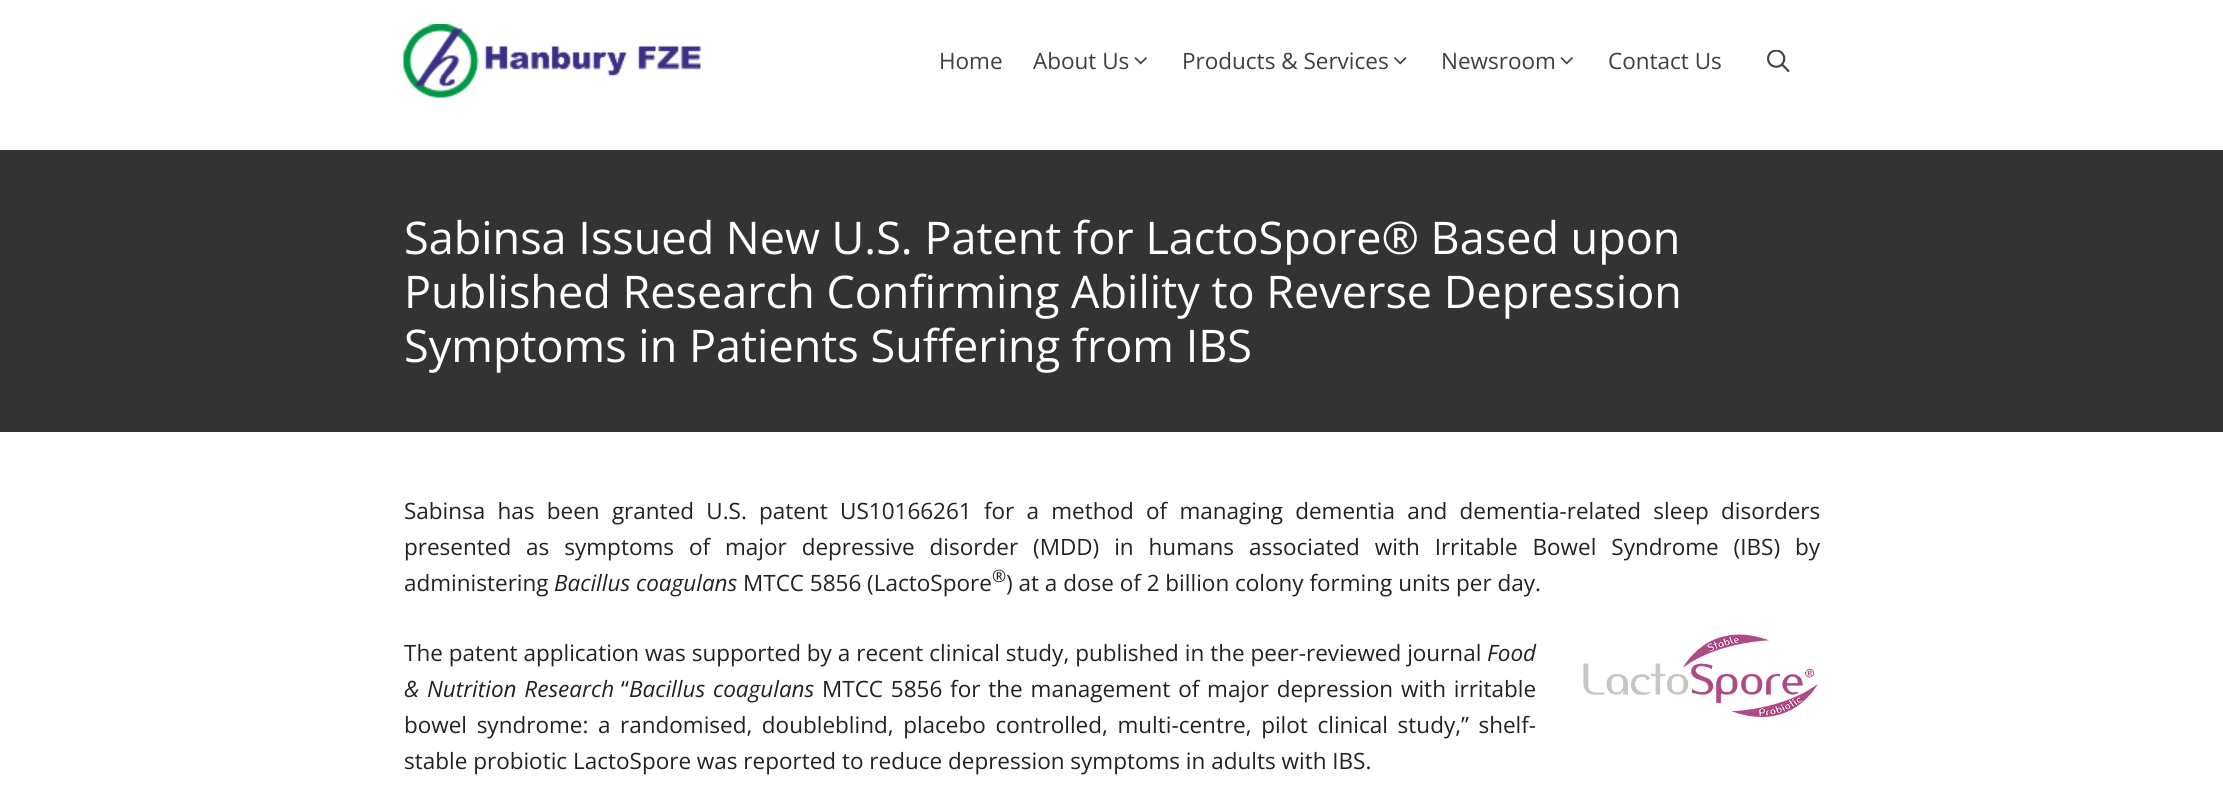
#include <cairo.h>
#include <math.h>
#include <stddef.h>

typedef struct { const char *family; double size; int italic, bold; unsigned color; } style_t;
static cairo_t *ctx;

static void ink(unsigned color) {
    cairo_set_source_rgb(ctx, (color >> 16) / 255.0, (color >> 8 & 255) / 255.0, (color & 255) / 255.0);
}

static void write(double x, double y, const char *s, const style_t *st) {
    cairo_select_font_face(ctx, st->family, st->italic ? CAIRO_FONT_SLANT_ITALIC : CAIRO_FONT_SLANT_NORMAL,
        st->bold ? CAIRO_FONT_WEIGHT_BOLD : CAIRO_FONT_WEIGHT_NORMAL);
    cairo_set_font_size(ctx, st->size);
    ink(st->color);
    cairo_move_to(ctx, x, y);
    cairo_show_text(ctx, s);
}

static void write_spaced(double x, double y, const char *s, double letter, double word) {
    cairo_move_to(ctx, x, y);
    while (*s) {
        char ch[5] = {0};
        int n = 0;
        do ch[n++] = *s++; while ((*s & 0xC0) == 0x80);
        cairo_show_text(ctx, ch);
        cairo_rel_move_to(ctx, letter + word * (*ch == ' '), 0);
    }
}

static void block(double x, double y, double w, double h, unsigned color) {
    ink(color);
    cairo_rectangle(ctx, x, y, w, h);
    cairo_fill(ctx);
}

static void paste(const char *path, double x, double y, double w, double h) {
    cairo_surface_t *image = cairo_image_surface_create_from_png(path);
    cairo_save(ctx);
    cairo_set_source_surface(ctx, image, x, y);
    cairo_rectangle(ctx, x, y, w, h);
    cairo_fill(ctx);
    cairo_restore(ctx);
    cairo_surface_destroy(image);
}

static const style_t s1 = {"Open Sans", 22.5, 0, 0, 0x3f3f3f};
static const style_t s2 = {"Open Sans", 45, 0, 0, 0xffffff};
static const style_t s3 = {"Open Sans", 22.5, 0, 0, 0x222222};
static const style_t s4 = {"Open Sans", 22.5, 1, 0, 0x222222};
static const style_t s5 = {"Open Sans", 17, 0, 0, 0x222222};

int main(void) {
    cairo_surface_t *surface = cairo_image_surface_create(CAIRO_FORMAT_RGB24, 2223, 789);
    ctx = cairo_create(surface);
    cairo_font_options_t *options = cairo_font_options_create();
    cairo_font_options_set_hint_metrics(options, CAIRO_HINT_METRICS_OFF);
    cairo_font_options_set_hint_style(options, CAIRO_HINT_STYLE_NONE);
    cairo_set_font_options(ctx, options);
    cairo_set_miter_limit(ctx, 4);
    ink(0xffffff);
    cairo_paint(ctx);
    paste("pic1.png", 403, 24, 298, 74);
    write(939, 69, "Home", &s1);
    write(1033, 69, "About Us", &s1);
    paste("pic2.png", 1134, 57, 13, 8);
    write(1182, 69, "Products & Services", &s1);
    paste("pic3.png", 1394, 57, 13, 8);
    write(1441, 69, "Newsroom", &s1);
    paste("pic2.png", 1560, 57, 13, 8);
    write(1608, 69, "Contact Us", &s1);
    paste("pic4.png", 1767, 50, 23, 22);
    block(0, 150, 2223, 282, 0x333333);
    write(404, 254, "Sabinsa Issued New U.S. Patent for LactoSpore® Based upon", &s2);
    write(404, 308, "Published Research Confirming Ability to Reverse Depression", &s2);
    write(404, 362, "Symptoms in Patients Suffering from IBS", &s2);
    cairo_set_font_size(ctx, 22.5);
    ink(0x222222);
    write_spaced(404, 519, "Sabinsa has been granted U.S. patent US10166261 for a method of managing dementia and dementia-related sleep disorders", 0, 6.4);
    write_spaced(404, 555, "presented as symptoms of major depressive disorder (MDD) in humans associated with Irritable Bowel Syndrome (IBS) by", 0, 9.1);
    write(404, 591, "administering", &s3);
    write(554, 591, "Bacillus coagulans", &s4);
    write(743, 591, "MTCC 5856 (LactoSpore", &s3);
    write(992, 582, "®", &s5);
    write(1006, 591, ") at a dose of 2 billion colony forming units per day.", &s3);
    write_spaced(404, 661, "The patent application was supported by a recent clinical study, published in the peer-reviewed journal", 0, 0.1);
    write(1487, 661, "Food", &s4);
    write_spaced(404, 697, "& Nutrition Research", 0, 2);
    write(621, 697, "“", &s3);
    cairo_select_font_face(ctx, "Open Sans", CAIRO_FONT_SLANT_ITALIC, CAIRO_FONT_WEIGHT_NORMAL);
    write_spaced(629, 697, "Bacillus coagulans", 0, 2);
    cairo_select_font_face(ctx, "Open Sans", CAIRO_FONT_SLANT_NORMAL, CAIRO_FONT_WEIGHT_NORMAL);
    write_spaced(822, 697, "MTCC 5856 for the management of major depression with irritable", 0, 2);
    write_spaced(404, 733, "bowel syndrome: a randomised, doubleblind, placebo controlled, multi-centre, pilot clinical study,” shelf-", 0, 3.75);
    write(404, 769, "stable probiotic LactoSpore was reported to reduce depression symptoms in adults with IBS.", &s3);
    paste("pic5.png", 1583, 634, 235, 83);
    cairo_surface_write_to_png(surface, "screenshot.png");
    cairo_font_options_destroy(options);
    cairo_destroy(ctx);
    cairo_surface_destroy(surface);
    return 0;
}
